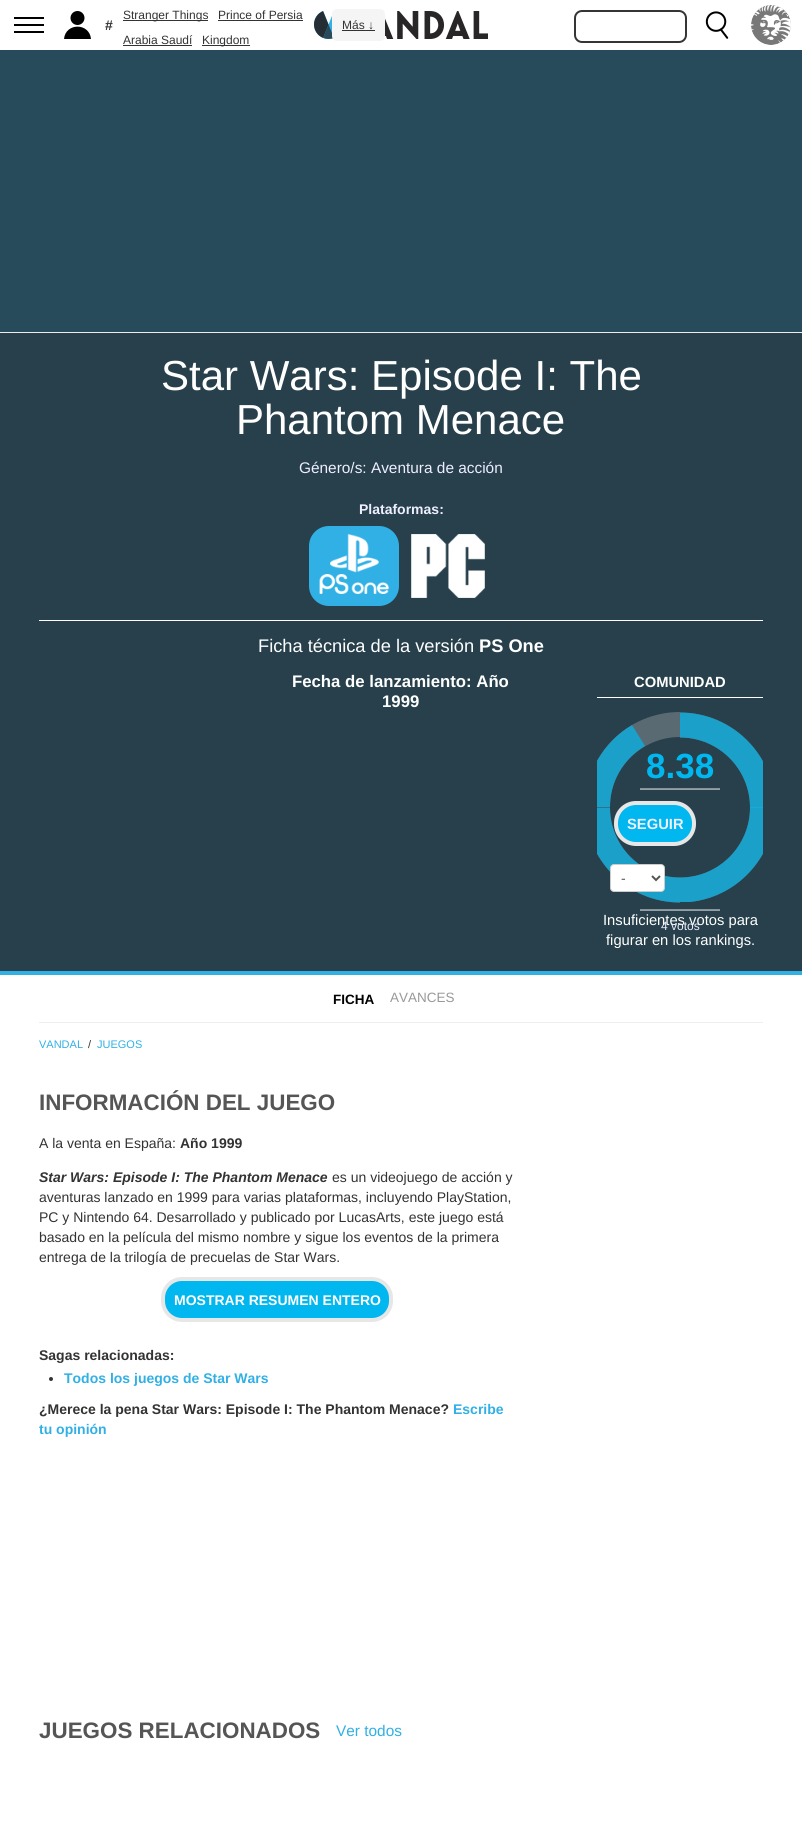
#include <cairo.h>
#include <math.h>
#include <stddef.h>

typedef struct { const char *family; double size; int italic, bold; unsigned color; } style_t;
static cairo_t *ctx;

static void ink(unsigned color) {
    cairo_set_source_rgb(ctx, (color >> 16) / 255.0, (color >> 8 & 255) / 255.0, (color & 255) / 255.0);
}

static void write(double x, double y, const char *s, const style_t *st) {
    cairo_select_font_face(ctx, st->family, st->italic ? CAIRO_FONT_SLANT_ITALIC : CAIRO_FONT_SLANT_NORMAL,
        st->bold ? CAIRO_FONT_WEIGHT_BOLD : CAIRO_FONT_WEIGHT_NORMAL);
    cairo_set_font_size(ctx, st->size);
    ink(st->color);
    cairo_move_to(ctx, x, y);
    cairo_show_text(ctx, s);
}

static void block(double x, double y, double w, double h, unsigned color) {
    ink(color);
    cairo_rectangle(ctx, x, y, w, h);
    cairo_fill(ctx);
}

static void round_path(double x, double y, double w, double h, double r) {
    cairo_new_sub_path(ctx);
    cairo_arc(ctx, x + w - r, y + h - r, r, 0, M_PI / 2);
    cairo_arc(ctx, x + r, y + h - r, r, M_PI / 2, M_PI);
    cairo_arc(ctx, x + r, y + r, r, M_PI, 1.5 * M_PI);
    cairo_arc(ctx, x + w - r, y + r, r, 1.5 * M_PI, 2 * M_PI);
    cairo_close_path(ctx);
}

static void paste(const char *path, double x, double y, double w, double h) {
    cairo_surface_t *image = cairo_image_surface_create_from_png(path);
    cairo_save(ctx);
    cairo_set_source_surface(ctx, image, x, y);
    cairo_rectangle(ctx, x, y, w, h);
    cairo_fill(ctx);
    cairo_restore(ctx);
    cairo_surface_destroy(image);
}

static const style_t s1 = {"Liberation Sans", 12, 0, 0, 0x333333};
static const style_t s2 = {"Liberation Sans", 14, 0, 1, 0x333333};
static const style_t s3 = {"Liberation Sans", 42, 0, 0, 0xffffff};
static const style_t s4 = {"Liberation Sans", 15.4, 0, 0, 0xeeeeff};
static const style_t s5 = {"Liberation Sans", 14, 0, 1, 0xeeeeff};
static const style_t s6 = {"Liberation Sans", 18.25, 0, 0, 0xffffff};
static const style_t s7 = {"Liberation Sans", 18.25, 0, 1, 0xffffff};
static const style_t s8 = {"Liberation Sans", 16.75, 0, 1, 0xffffff};
static const style_t s9 = {"Liberation Sans", 14.75, 0, 1, 0xffffff};
static const style_t s10 = {"Liberation Sans", 35, 0, 1, 0x00b7ef};
static const style_t s11 = {"Liberation Sans", 14.75, 0, 1, 0xeeeeff};
static const style_t s12 = {"Liberation Sans", 14, 0, 0, 0x555555};
static const style_t s13 = {"Liberation Sans", 14.75, 0, 0, 0xffffff};
static const style_t s14 = {"Liberation Sans", 12, 0, 0, 0xeeeeff};
static const style_t s15 = {"Liberation Sans", 13.5, 0, 1, 0x000000};
static const style_t s16 = {"Liberation Sans", 13.5, 0, 0, 0x999999};
static const style_t s17 = {"Liberation Sans", 11, 0, 0, 0x30b0e5};
static const style_t s18 = {"Liberation Sans", 11, 0, 0, 0x333333};
static const style_t s19 = {"Liberation Sans", 22.4, 0, 1, 0x555555};
static const style_t s20 = {"Liberation Sans", 14, 0, 0, 0x333333};
static const style_t s21 = {"Liberation Sans", 14, 1, 1, 0x333333};
static const style_t s22 = {"Liberation Sans", 14, 0, 1, 0xffffff};
static const style_t s23 = {"Liberation Sans", 14, 0, 1, 0x30b0e5};
static const style_t s24 = {"Liberation Sans", 15.4, 0, 0, 0x30b0e5};

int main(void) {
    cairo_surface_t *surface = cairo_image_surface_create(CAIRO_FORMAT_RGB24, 802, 1829);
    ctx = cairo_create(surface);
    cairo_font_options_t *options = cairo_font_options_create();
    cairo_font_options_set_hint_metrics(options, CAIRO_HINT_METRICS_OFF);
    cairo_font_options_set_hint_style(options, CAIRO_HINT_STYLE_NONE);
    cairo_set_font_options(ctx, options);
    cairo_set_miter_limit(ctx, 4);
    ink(0x284b5b);
    cairo_paint(ctx);
    block(0, 0, 802, 50, 0xffffff);
    block(14, 17, 30, 2, 0x000000);
    block(14, 24, 30, 2, 0x000000);
    block(14, 31, 30, 2, 0x000000);
    cairo_arc(ctx, 77.5, 18, 7, 0, 2 * M_PI);
    cairo_fill(ctx);
    cairo_new_path(ctx);
    cairo_move_to(ctx, 91, 39);
    cairo_curve_to(ctx, 89.5, 22.5, 65.5, 22.5, 64, 39);
    cairo_close_path(ctx);
    cairo_fill(ctx);
    paste("pic1.png", 314, 11, 174, 28);
    round_path(575, 11, 111, 31, 7);
    ink(0x353535);
    cairo_stroke(ctx);
    paste("pic2.png", 705, 11, 24, 28);
    paste("pic3.png", 751, 5, 40, 40);
    block(123, 20, 85, 1, 0x333333);
    write(123, 19, "Stranger Things", &s1);
    write(218, 19, "Prince of Persia", &s1);
    block(218, 20, 85, 1, 0x333333);
    write(105, 30, "#", &s2);
    write(123, 44, "Arabia Saudí", &s1);
    block(123, 45, 69, 1, 0x333333);
    block(202, 45, 48, 1, 0x333333);
    write(202, 44, "Kingdom", &s1);
    ink(0xf5f5f5);
    round_path(332, 9, 53, 32, 5);
    cairo_fill(ctx);
    write(342, 29, "Más ↓", &s1);
    block(342, 30, 33, 1, 0x333333);
    block(0, 332, 802, 1, 0xeeeeee);
    block(0, 971, 802, 4, 0x30b0e5);
    block(0, 333, 802, 638, 0x27404b);
    write(161, 390, "Star Wars: Episode I: The", &s3);
    write(236, 434, "Phantom Menace", &s3);
    write(299, 473, "Género/s: Aventura de acción", &s4);
    write(359, 514, "Plataformas:", &s5);
    ink(0x30b0e5);
    round_path(309, 526, 90, 80, 20);
    cairo_fill(ctx);
    paste("pic4.png", 319, 534, 71, 60);
    paste("pic5.png", 411, 534, 74, 64);
    block(39, 620, 724, 1, 0xffffff);
    write(258, 652, "Ficha técnica de la versión", &s6);
    write(479, 652, "PS One", &s7);
    write(292, 687, "Fecha de lanzamiento: Año", &s8);
    write(382, 707, "1999", &s8);
    write(634, 687, "COMUNIDAD", &s9);
    block(597, 697, 166, 1, 0xffffff);
    cairo_save(ctx);
    cairo_rectangle(ctx, 597, 698, 166, 259);
    cairo_clip(ctx);
    cairo_new_path(ctx);
    cairo_move_to(ctx, 775, 712.5);
    cairo_line_to(ctx, 775, 807.5);
    cairo_line_to(ctx, 680, 807.5);
    cairo_line_to(ctx, 680, 712.5);
    cairo_close_path(ctx);
    cairo_clip(ctx);
    cairo_new_path(ctx);
    cairo_move_to(ctx, 762.5, 807.5);
    cairo_curve_to(ctx, 762.5, 853, 725.5, 890, 680, 890);
    cairo_curve_to(ctx, 634.5, 890, 597.5, 853, 597.5, 807.5);
    cairo_curve_to(ctx, 597.5, 762, 634.5, 725, 680, 725);
    cairo_curve_to(ctx, 725.5, 725, 762.5, 762, 762.5, 807.5);
    cairo_close_path(ctx);
    ink(0x596a72);
    cairo_set_line_width(ctx, 25);
    cairo_stroke(ctx);
    cairo_restore(ctx);
    cairo_save(ctx);
    cairo_rectangle(ctx, 597, 698, 166, 259);
    cairo_clip(ctx);
    cairo_new_path(ctx);
    cairo_move_to(ctx, 585, 902.5);
    cairo_line_to(ctx, 585, 807.5);
    cairo_line_to(ctx, 680, 807.5);
    cairo_line_to(ctx, 680, 902.5);
    cairo_close_path(ctx);
    cairo_clip(ctx);
    cairo_new_path(ctx);
    cairo_move_to(ctx, 597.5, 807.5);
    cairo_curve_to(ctx, 597.5, 762, 634.5, 725, 680, 725);
    cairo_curve_to(ctx, 725.5, 725, 762.5, 762, 762.5, 807.5);
    cairo_curve_to(ctx, 762.5, 853, 725.5, 890, 680, 890);
    cairo_curve_to(ctx, 634.5, 890, 597.5, 853, 597.5, 807.5);
    cairo_close_path(ctx);
    ink(0x596a72);
    cairo_set_line_width(ctx, 25);
    cairo_stroke(ctx);
    cairo_restore(ctx);
    cairo_save(ctx);
    cairo_rectangle(ctx, 680, 807, 83, 95);
    cairo_clip(ctx);
    cairo_new_path(ctx);
    cairo_move_to(ctx, 680, 890);
    cairo_curve_to(ctx, 634.5, 890, 597.5, 853, 597.5, 807.5);
    cairo_curve_to(ctx, 597.5, 762, 634.5, 725, 680, 725);
    cairo_curve_to(ctx, 725.5, 725, 762.5, 762, 762.5, 807.5);
    cairo_curve_to(ctx, 762.5, 853, 725.5, 890, 680, 890);
    cairo_close_path(ctx);
    cairo_set_source_rgba(ctx, 0.8, 0.8, 0.8, 0.3);
    cairo_set_line_width(ctx, 25);
    cairo_stroke(ctx);
    cairo_restore(ctx);
    cairo_save(ctx);
    cairo_rectangle(ctx, 597, 712, 83, 95);
    cairo_clip(ctx);
    cairo_arc(ctx, 680, 807, 82.5, 0, 2 * M_PI);
    ink(0x596a72);
    cairo_set_line_width(ctx, 25);
    cairo_stroke(ctx);
    cairo_restore(ctx);
    cairo_save(ctx);
    cairo_rectangle(ctx, 597, 698, 166, 259);
    cairo_clip(ctx);
    cairo_set_source_rgba(ctx, 0, 0.718, 0.937, 0.7);
    cairo_new_path(ctx);
    cairo_move_to(ctx, 585, 807);
    cairo_curve_to(ctx, 585, 774, 603, 742, 632, 725);
    cairo_line_to(ctx, 645, 746);
    cairo_curve_to(ctx, 623, 759, 610, 782, 610, 807);
    cairo_close_path(ctx);
    cairo_fill(ctx);
    cairo_restore(ctx);
    cairo_save(ctx);
    cairo_rectangle(ctx, 597, 698, 166, 259);
    cairo_clip(ctx);
    cairo_new_path(ctx);
    cairo_move_to(ctx, 775, 712.5);
    cairo_line_to(ctx, 775, 807.5);
    cairo_line_to(ctx, 680, 807.5);
    cairo_line_to(ctx, 680, 712.5);
    cairo_close_path(ctx);
    cairo_clip(ctx);
    cairo_new_path(ctx);
    cairo_move_to(ctx, 762.5, 807.5);
    cairo_curve_to(ctx, 762.5, 853, 725.5, 890, 680, 890);
    cairo_curve_to(ctx, 634.5, 890, 597.5, 853, 597.5, 807.5);
    cairo_curve_to(ctx, 597.5, 762, 634.5, 725, 680, 725);
    cairo_curve_to(ctx, 725.5, 725, 762.5, 762, 762.5, 807.5);
    cairo_close_path(ctx);
    cairo_set_source_rgba(ctx, 0, 0.718, 0.937, 0.7);
    cairo_set_line_width(ctx, 25);
    cairo_stroke(ctx);
    cairo_restore(ctx);
    write(646, 778, "8.38", &s10);
    block(640, 788, 80, 1, 0x879499);
    block(640, 789, 80, 1, 0x93a0a5);
    cairo_save(ctx);
    cairo_rectangle(ctx, 597, 698, 166, 259);
    cairo_clip(ctx);
    cairo_new_path(ctx);
    cairo_move_to(ctx, 585, 902.5);
    cairo_line_to(ctx, 585, 807.5);
    cairo_line_to(ctx, 680, 807.5);
    cairo_line_to(ctx, 680, 902.5);
    cairo_close_path(ctx);
    cairo_clip(ctx);
    cairo_new_path(ctx);
    cairo_move_to(ctx, 597.5, 807.5);
    cairo_curve_to(ctx, 597.5, 762, 634.5, 725, 680, 725);
    cairo_curve_to(ctx, 725.5, 725, 762.5, 762, 762.5, 807.5);
    cairo_curve_to(ctx, 762.5, 853, 725.5, 890, 680, 890);
    cairo_curve_to(ctx, 634.5, 890, 597.5, 853, 597.5, 807.5);
    cairo_close_path(ctx);
    cairo_set_source_rgba(ctx, 0, 0.718, 0.937, 0.7);
    cairo_set_line_width(ctx, 25);
    cairo_stroke(ctx);
    cairo_restore(ctx);
    cairo_save(ctx);
    cairo_rectangle(ctx, 680, 807, 83, 95);
    cairo_clip(ctx);
    cairo_new_path(ctx);
    cairo_move_to(ctx, 680, 890);
    cairo_curve_to(ctx, 634.5, 890, 597.5, 853, 597.5, 807.5);
    cairo_curve_to(ctx, 597.5, 762, 634.5, 725, 680, 725);
    cairo_curve_to(ctx, 725.5, 725, 762.5, 762, 762.5, 807.5);
    cairo_curve_to(ctx, 762.5, 853, 725.5, 890, 680, 890);
    cairo_close_path(ctx);
    cairo_set_source_rgba(ctx, 0, 0.718, 0.937, 0.7);
    cairo_set_line_width(ctx, 25);
    cairo_stroke(ctx);
    cairo_restore(ctx);
    ink(0x00b7ef);
    round_path(616, 803, 78, 41, 20);
    cairo_fill_preserve(ctx);
    ink(0xe7e7e7);
    cairo_set_line_width(ctx, 4);
    cairo_stroke(ctx);
    write(627, 829, "SEGUIR", &s11);
    ink(0xffffff);
    round_path(610.5, 864.5, 54, 27, 3.5);
    cairo_fill_preserve(ctx);
    ink(0xcccccc);
    cairo_set_line_width(ctx, 1);
    cairo_stroke(ctx);
    cairo_new_path(ctx);
    cairo_move_to(ctx, 652, 876);
    cairo_line_to(ctx, 656, 880);
    cairo_line_to(ctx, 660, 876);
    ink(0x555555);
    cairo_set_line_width(ctx, 2);
    cairo_stroke(ctx);
    write(621, 883, "-", &s12);
    block(640, 909, 80, 1, 0x879499);
    block(640, 910, 80, 1, 0x93a0a5);
    write(603, 925, "Insuficientes votos para", &s13);
    write(661, 930, "4 votos", &s14);
    write(606, 945, "figurar en los rankings.", &s13);
    block(0, 975, 802, 854, 0xffffff);
    block(39, 1022, 724, 1, 0xefefef);
    write(333, 1004, "FICHA", &s15);
    write(390, 1002, "AVANCES", &s16);
    write(39, 1048, "VANDAL", &s17);
    write(88, 1048, "/", &s18);
    write(97, 1048, "JUEGOS", &s17);
    write(39, 1110, "INFORMACIÓN DEL JUEGO", &s19);
    write(39, 1148, "A la venta en España:", &s20);
    write(180, 1148, "Año 1999", &s2);
    write(39, 1182, "Star Wars: Episode I: The Phantom Menace", &s21);
    write(332, 1182, "es un videojuego de acción y", &s20);
    write(39, 1202, "aventuras lanzado en 1999 para varias plataformas, incluyendo PlayStation,", &s20);
    write(39, 1222, "PC y Nintendo 64. Desarrollado y publicado por LucasArts, este juego está", &s20);
    write(39, 1242, "basado en la película del mismo nombre y sigue los eventos de la primera", &s20);
    write(39, 1262, "entrega de la trilogía de precuelas de Star Wars.", &s20);
    ink(0x00b7ef);
    round_path(163, 1279, 228, 41, 19);
    cairo_fill_preserve(ctx);
    ink(0xe7e7e7);
    cairo_set_line_width(ctx, 4);
    cairo_stroke(ctx);
    write(174, 1305, "MOSTRAR RESUMEN ENTERO", &s22);
    write(39, 1360, "Sagas relacionadas:", &s2);
    cairo_new_path(ctx);
    cairo_arc(ctx, 51, 1379, 2, 0, 2 * M_PI);
    cairo_fill(ctx);
    write(64, 1383, "Todos los juegos de Star Wars", &s23);
    write(39, 1414, "¿Merece la pena Star Wars: Episode I: The Phantom Menace?", &s2);
    write(453, 1414, "Escribe", &s23);
    write(39, 1434, "tu opinión", &s23);
    write(39, 1738, "JUEGOS RELACIONADOS", &s19);
    write(336, 1736, "Ver todos", &s24);
    cairo_surface_write_to_png(surface, "screenshot.png");
    cairo_font_options_destroy(options);
    cairo_destroy(ctx);
    cairo_surface_destroy(surface);
    return 0;
}
